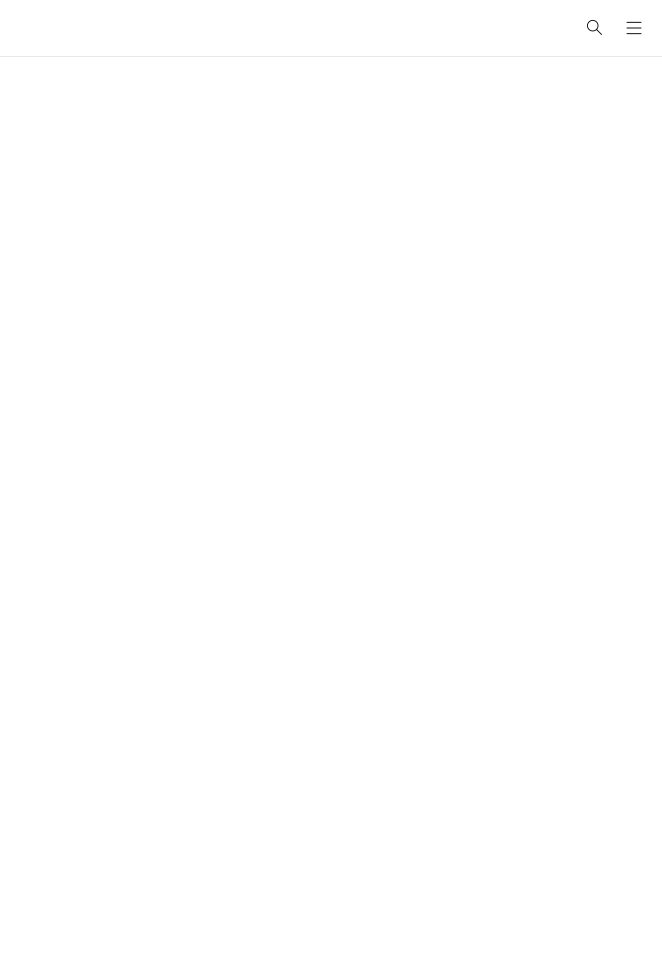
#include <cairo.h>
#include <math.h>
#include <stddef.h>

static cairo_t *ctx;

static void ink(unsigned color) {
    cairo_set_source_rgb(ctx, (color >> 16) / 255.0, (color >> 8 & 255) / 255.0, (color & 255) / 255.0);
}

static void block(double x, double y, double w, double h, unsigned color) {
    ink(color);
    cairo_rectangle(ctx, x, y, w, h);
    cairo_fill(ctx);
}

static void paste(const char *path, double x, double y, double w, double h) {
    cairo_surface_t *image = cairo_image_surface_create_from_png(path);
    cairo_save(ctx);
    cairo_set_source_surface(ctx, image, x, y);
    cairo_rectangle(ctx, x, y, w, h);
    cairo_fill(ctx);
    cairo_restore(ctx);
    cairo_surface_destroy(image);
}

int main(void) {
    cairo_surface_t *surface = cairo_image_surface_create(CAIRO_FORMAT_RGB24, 662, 974);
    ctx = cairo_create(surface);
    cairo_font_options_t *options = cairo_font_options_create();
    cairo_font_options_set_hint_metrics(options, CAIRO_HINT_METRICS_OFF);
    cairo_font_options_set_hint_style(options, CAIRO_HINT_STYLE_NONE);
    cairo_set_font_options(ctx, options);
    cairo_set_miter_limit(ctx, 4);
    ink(0xffffff);
    cairo_paint(ctx);
    block(0, 56, 662, 1, 0xe9e9e9);
    paste("pic1.png", 587, 19, 15, 16);
    paste("pic2.png", 626, 21, 16, 14);
    cairo_surface_write_to_png(surface, "screenshot.png");
    cairo_font_options_destroy(options);
    cairo_destroy(ctx);
    cairo_surface_destroy(surface);
    return 0;
}
